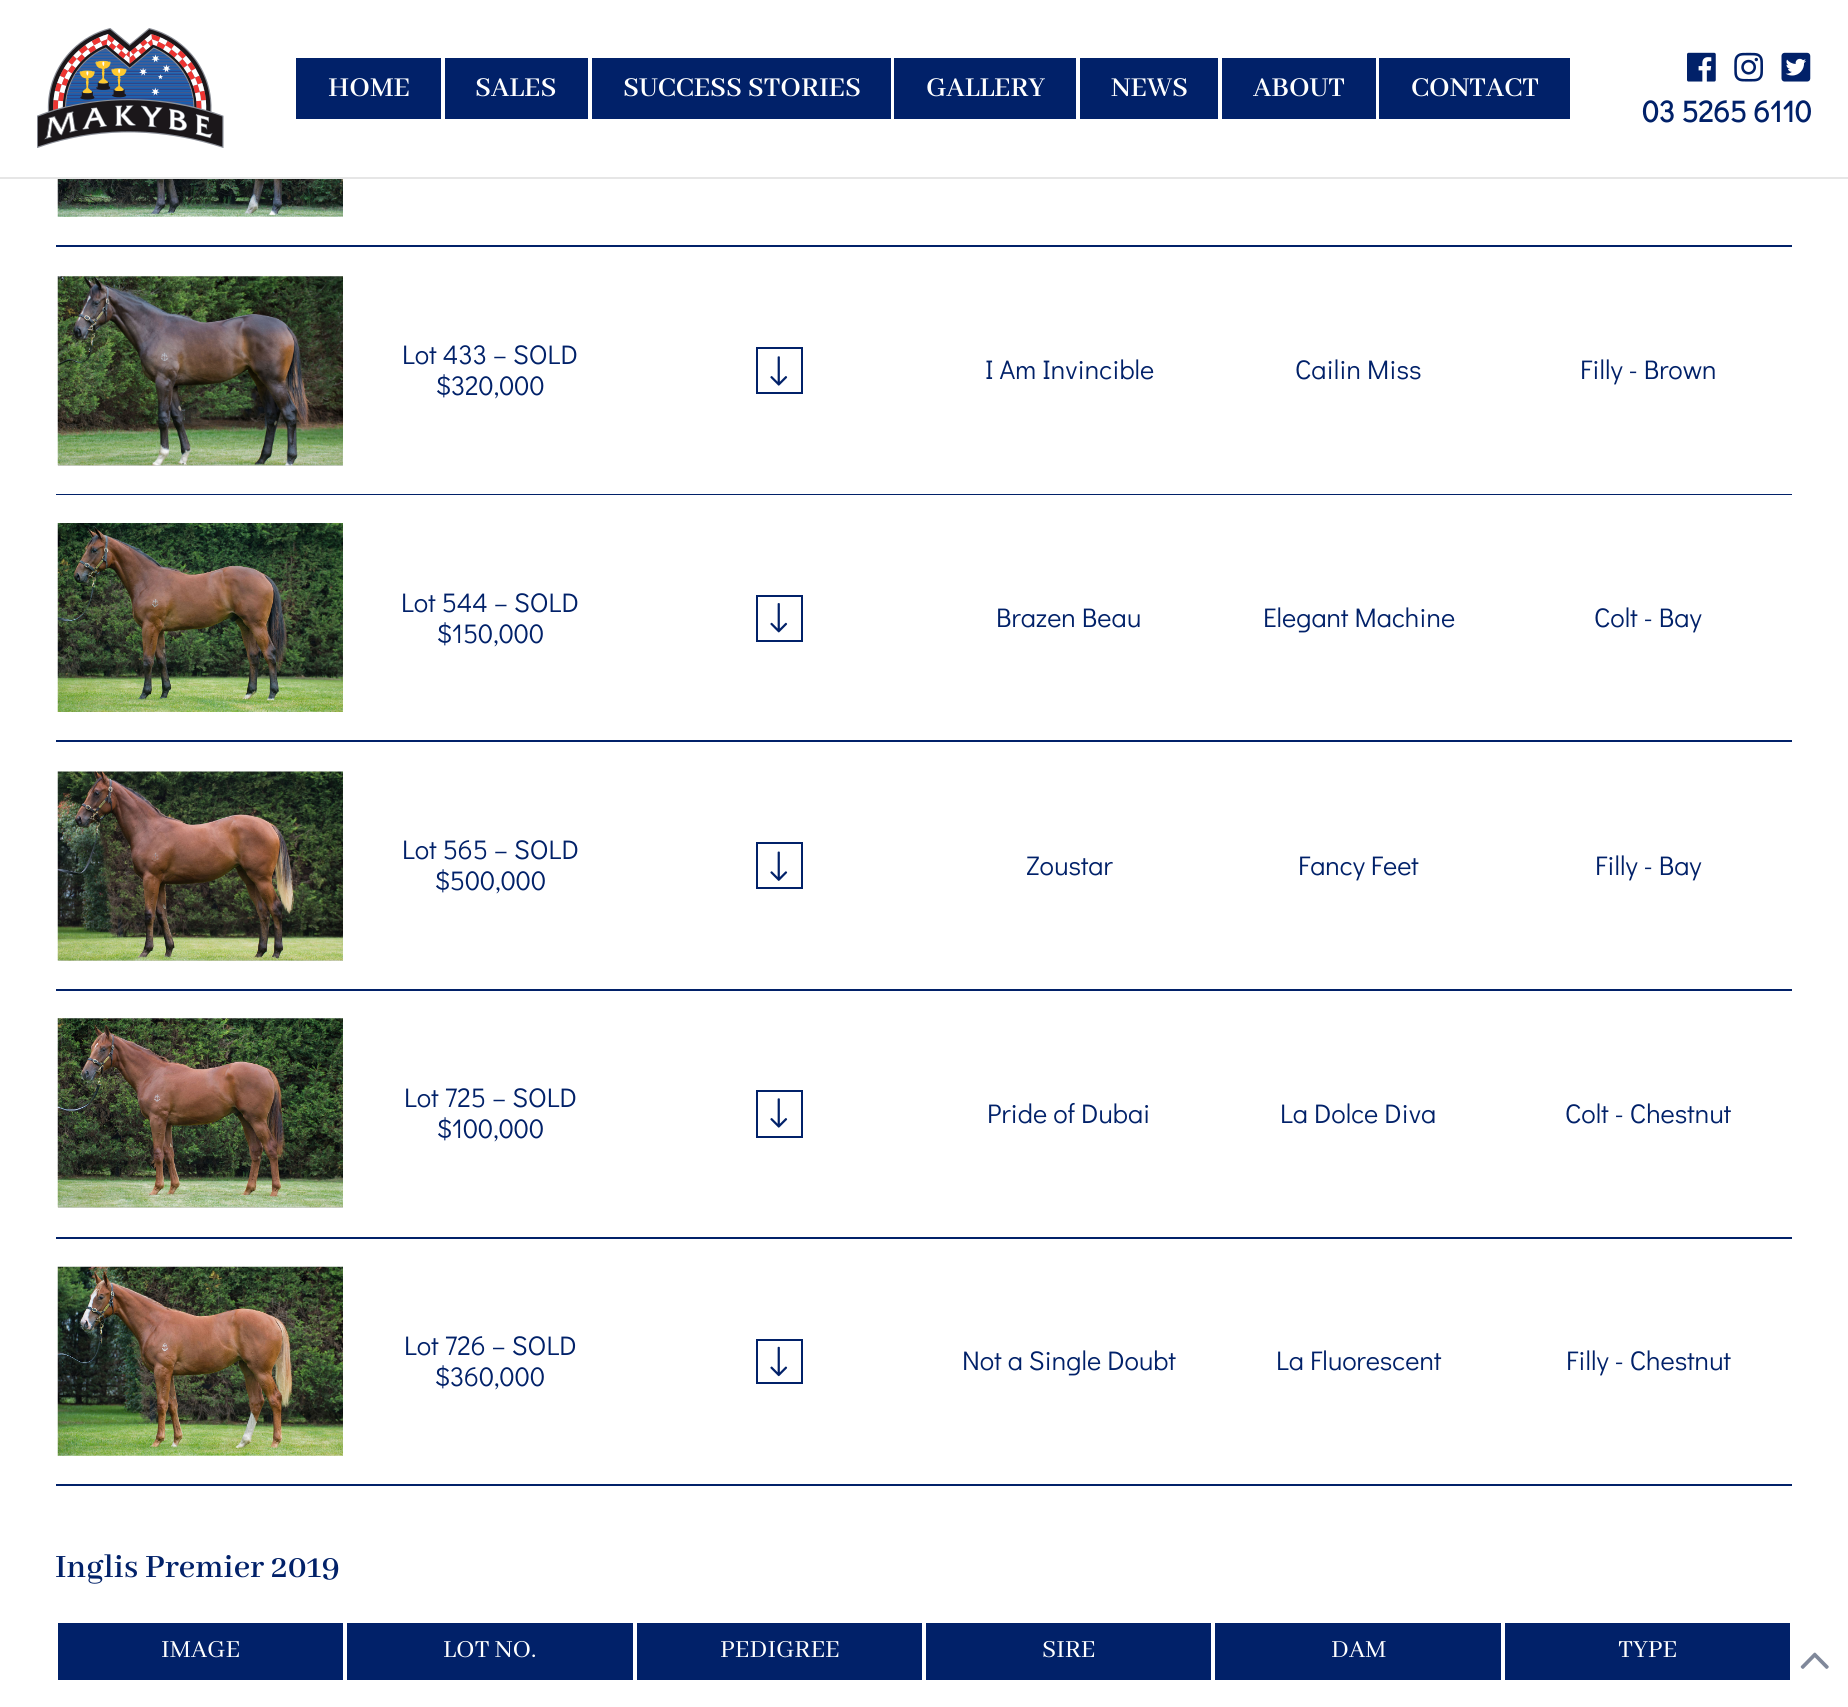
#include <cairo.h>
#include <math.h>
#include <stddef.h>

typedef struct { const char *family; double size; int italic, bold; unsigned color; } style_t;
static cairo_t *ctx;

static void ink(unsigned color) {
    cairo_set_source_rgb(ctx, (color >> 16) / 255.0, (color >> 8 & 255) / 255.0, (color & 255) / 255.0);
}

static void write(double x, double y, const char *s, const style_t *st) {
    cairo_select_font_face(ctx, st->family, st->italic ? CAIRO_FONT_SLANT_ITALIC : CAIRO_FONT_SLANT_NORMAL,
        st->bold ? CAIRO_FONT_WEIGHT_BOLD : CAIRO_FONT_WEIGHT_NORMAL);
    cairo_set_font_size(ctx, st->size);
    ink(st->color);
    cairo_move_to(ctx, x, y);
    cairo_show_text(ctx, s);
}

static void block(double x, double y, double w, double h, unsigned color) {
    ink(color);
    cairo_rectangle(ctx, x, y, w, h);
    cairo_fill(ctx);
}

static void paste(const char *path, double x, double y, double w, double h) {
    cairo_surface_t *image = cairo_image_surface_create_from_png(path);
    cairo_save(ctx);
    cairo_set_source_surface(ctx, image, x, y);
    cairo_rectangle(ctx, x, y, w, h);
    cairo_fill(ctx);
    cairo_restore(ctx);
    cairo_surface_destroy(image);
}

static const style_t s1 = {"Abhaya Libre SemiBold SemiBold", 30, 0, 0, 0xffffff};
static const style_t s2 = {"Didact Gothic", 30, 0, 1, 0x012169};
static const style_t s3 = {"Didact Gothic", 27, 0, 0, 0x012169};
static const style_t s4 = {"Abhaya Libre SemiBold SemiBold", 35.75, 0, 0, 0x012169};
static const style_t s5 = {"Abhaya Libre", 27, 0, 0, 0xffffff};

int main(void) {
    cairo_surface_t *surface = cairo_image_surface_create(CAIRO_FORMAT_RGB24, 1848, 1707);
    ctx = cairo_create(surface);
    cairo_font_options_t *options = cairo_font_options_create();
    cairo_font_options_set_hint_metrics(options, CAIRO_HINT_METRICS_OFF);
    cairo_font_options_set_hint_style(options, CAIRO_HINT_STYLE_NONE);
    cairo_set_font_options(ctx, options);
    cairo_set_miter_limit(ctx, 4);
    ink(0xffffff);
    cairo_paint(ctx);
    block(0, 177, 1848, 2, 0xe6e6e6);
    paste("pic1.png", 37, 28, 187, 120);
    block(296, 58, 145, 61, 0x012169);
    write(328, 96, "HOME", &s1);
    block(445, 58, 143, 61, 0x012169);
    write(475, 96, "SALES", &s1);
    block(592, 58, 299, 61, 0x012169);
    write(623, 96, "SUCCESS STORIES", &s1);
    block(894, 58, 182, 61, 0x012169);
    write(926, 96, "GALLERY", &s1);
    block(1080, 58, 138, 61, 0x012169);
    write(1111, 96, "NEWS", &s1);
    block(1222, 58, 154, 61, 0x012169);
    write(1253, 96, "ABOUT", &s1);
    block(1379, 58, 191, 61, 0x012169);
    write(1411, 96, "CONTACT", &s1);
    paste("pic2.png", 1687, 52, 29, 30);
    paste("pic3.png", 1734, 52, 29, 30);
    paste("pic4.png", 1781, 52, 30, 30);
    write(1642, 122, "03 5265 6110", &s2);
    block(56, 245, 1736, 2, 0x012169);
    paste("pic5.png", 57, 179, 286, 38);
    block(56, 494, 1736, 1, 0x012169);
    block(58, 465, 285, 1, 0xcdcdcd);
    paste("pic6.png", 57, 276, 286, 190);
    write(402, 364, "Lot 433 – SOLD", &s3);
    write(435, 395, "$320,000", &s3);
    cairo_rectangle(ctx, 757, 348, 45, 45);
    cairo_stroke(ctx);
    paste("pic7.png", 770, 356, 18, 30);
    write(985, 379, "I Am Invincible", &s3);
    write(1295, 379, "Cailin Miss", &s3);
    write(1580, 379, "Filly - Brown", &s3);
    block(56, 740, 1736, 2, 0x012169);
    paste("pic8.png", 57, 523, 286, 189);
    write(401, 612, "Lot 544 – SOLD", &s3);
    write(436, 643, "$150,000", &s3);
    cairo_rectangle(ctx, 757, 596, 45, 45);
    cairo_stroke(ctx);
    paste("pic9.png", 770, 603, 18, 30);
    write(996, 627, "Brazen Beau", &s3);
    write(1263, 627, "Elegant Machine", &s3);
    write(1594, 627, "Colt - Bay", &s3);
    block(56, 989, 1736, 2, 0x012169);
    block(58, 960, 285, 1, 0xcdcdcd);
    paste("pic10.png", 57, 771, 286, 190);
    write(402, 859, "Lot 565 – SOLD", &s3);
    write(434, 890, "$500,000", &s3);
    cairo_rectangle(ctx, 757, 843, 45, 45);
    cairo_stroke(ctx);
    paste("pic11.png", 770, 851, 18, 30);
    write(1026, 875, "Zoustar", &s3);
    write(1298, 875, "Fancy Feet", &s3);
    write(1595, 875, "Filly - Bay", &s3);
    block(56, 1237, 1736, 2, 0x012169);
    block(58, 1207, 285, 1, 0xcdcdcd);
    paste("pic12.png", 57, 1018, 286, 190);
    write(404, 1107, "Lot 725 – SOLD", &s3);
    write(436, 1138, "$100,000", &s3);
    cairo_rectangle(ctx, 757, 1091, 45, 46);
    cairo_stroke(ctx);
    paste("pic7.png", 770, 1098, 18, 30);
    write(987, 1123, "Pride of Dubai", &s3);
    write(1280, 1123, "La Dolce Diva", &s3);
    write(1565, 1123, "Colt - Chestnut", &s3);
    block(56, 1484, 1736, 2, 0x012169);
    paste("pic13.png", 57, 1266, 286, 190);
    write(404, 1355, "Lot 726 – SOLD", &s3);
    write(434, 1386, "$360,000", &s3);
    cairo_rectangle(ctx, 757, 1340, 45, 43);
    cairo_stroke(ctx);
    paste("pic14.png", 770, 1346, 18, 31);
    write(962, 1370, "Not a Single Doubt", &s3);
    write(1276, 1370, "La Fluorescent", &s3);
    write(1566, 1370, "Filly - Chestnut", &s3);
    write(55, 1577, "Inglis Premier 2019", &s4);
    block(58, 1623, 285, 57, 0x012169);
    write(161, 1657, "IMAGE", &s5);
    block(347, 1623, 286, 57, 0x012169);
    write(443, 1657, "LOT NO.", &s5);
    block(637, 1623, 285, 57, 0x012169);
    write(720, 1657, "PEDIGREE", &s5);
    block(926, 1623, 285, 57, 0x012169);
    write(1042, 1657, "SIRE", &s5);
    block(1215, 1623, 286, 57, 0x012169);
    write(1331, 1657, "DAM", &s5);
    block(1505, 1623, 285, 57, 0x012169);
    write(1618, 1657, "TYPE", &s5);
    paste("pic15.png", 1800, 1652, 29, 17);
    cairo_surface_write_to_png(surface, "screenshot.png");
    cairo_font_options_destroy(options);
    cairo_destroy(ctx);
    cairo_surface_destroy(surface);
    return 0;
}
